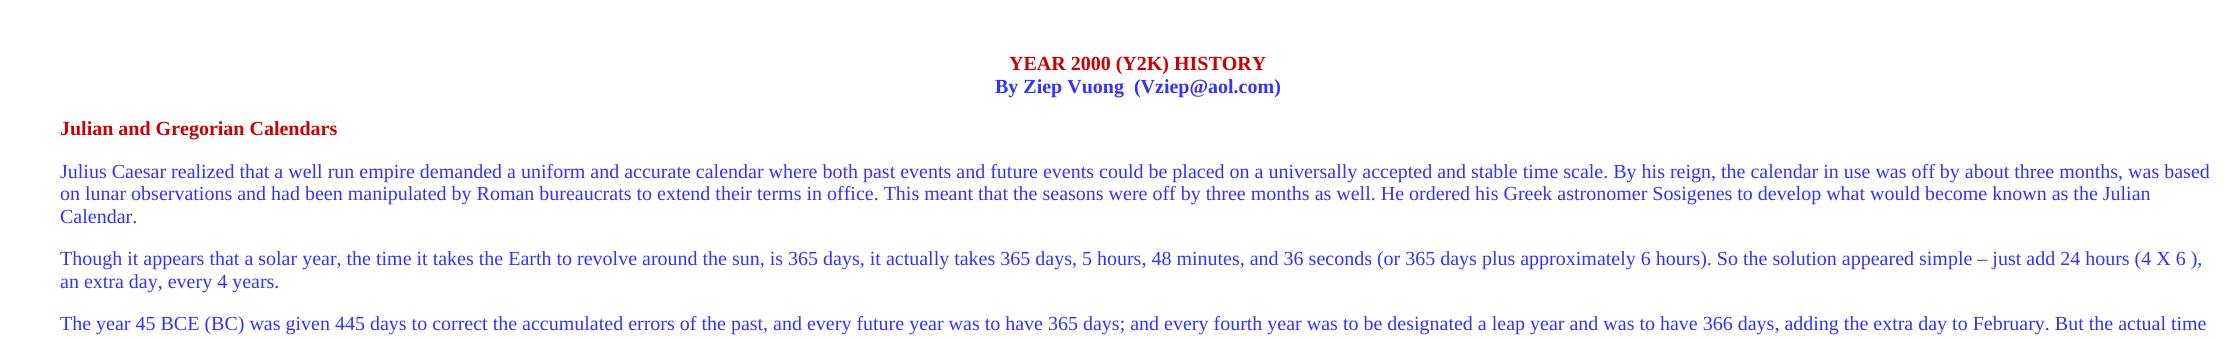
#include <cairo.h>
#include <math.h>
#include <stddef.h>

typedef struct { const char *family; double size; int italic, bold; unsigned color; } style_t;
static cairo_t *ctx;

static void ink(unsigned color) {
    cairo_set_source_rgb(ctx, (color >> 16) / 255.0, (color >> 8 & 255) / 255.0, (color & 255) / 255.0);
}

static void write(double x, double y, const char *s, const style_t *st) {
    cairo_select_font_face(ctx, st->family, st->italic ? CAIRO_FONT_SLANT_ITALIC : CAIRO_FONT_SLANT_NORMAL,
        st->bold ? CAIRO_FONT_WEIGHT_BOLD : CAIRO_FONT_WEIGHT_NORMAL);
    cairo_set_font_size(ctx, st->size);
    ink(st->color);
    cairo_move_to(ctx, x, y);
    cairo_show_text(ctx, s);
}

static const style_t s1 = {"Liberation Serif", 20, 0, 1, 0xcc0000};
static const style_t s2 = {"Liberation Serif", 20, 0, 1, 0x3333ff};
static const style_t s3 = {"Liberation Serif", 20, 0, 0, 0x3333ff};

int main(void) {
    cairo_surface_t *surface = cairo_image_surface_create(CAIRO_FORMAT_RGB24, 2225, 338);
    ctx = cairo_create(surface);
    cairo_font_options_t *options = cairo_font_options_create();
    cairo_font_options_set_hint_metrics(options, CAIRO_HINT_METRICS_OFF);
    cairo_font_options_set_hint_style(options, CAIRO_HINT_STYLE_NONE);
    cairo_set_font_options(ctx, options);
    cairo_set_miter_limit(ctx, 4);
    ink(0xffffff);
    cairo_paint(ctx);
    write(1009, 70, "YEAR 2000 (Y2K) HISTORY", &s1);
    write(995, 93, "By Ziep Vuong  (Vziep@aol.com)", &s2);
    write(60, 135, "Julian and Gregorian Calendars", &s1);
    write(60, 178, "Julius Caesar realized that a well run empire demanded a uniform and accurate calendar where both past events and future events could be placed on a universally accepted and stable time scale. By his reign, the calendar in use was off by about three months, was based", &s3);
    write(60, 200, "on lunar observations and had been manipulated by Roman bureaucrats to extend their terms in office. This meant that the seasons were off by three months as well. He ordered his Greek astronomer Sosigenes to develop what would become known as the Julian", &s3);
    write(60, 223, "Calendar.", &s3);
    write(60, 265, "Though it appears that a solar year, the time it takes the Earth to revolve around the sun, is 365 days, it actually takes 365 days, 5 hours, 48 minutes, and 36 seconds (or 365 days plus approximately 6 hours). So the solution appeared simple – just add 24 hours (4 X 6 ),", &s3);
    write(60, 288, "an extra day, every 4 years.", &s3);
    write(60, 330, "The year 45 BCE (BC) was given 445 days to correct the accumulated errors of the past, and every future year was to have 365 days; and every fourth year was to be designated a leap year and was to have 366 days, adding the extra day to February. But the actual time", &s3);
    cairo_surface_write_to_png(surface, "screenshot.png");
    cairo_font_options_destroy(options);
    cairo_destroy(ctx);
    cairo_surface_destroy(surface);
    return 0;
}
